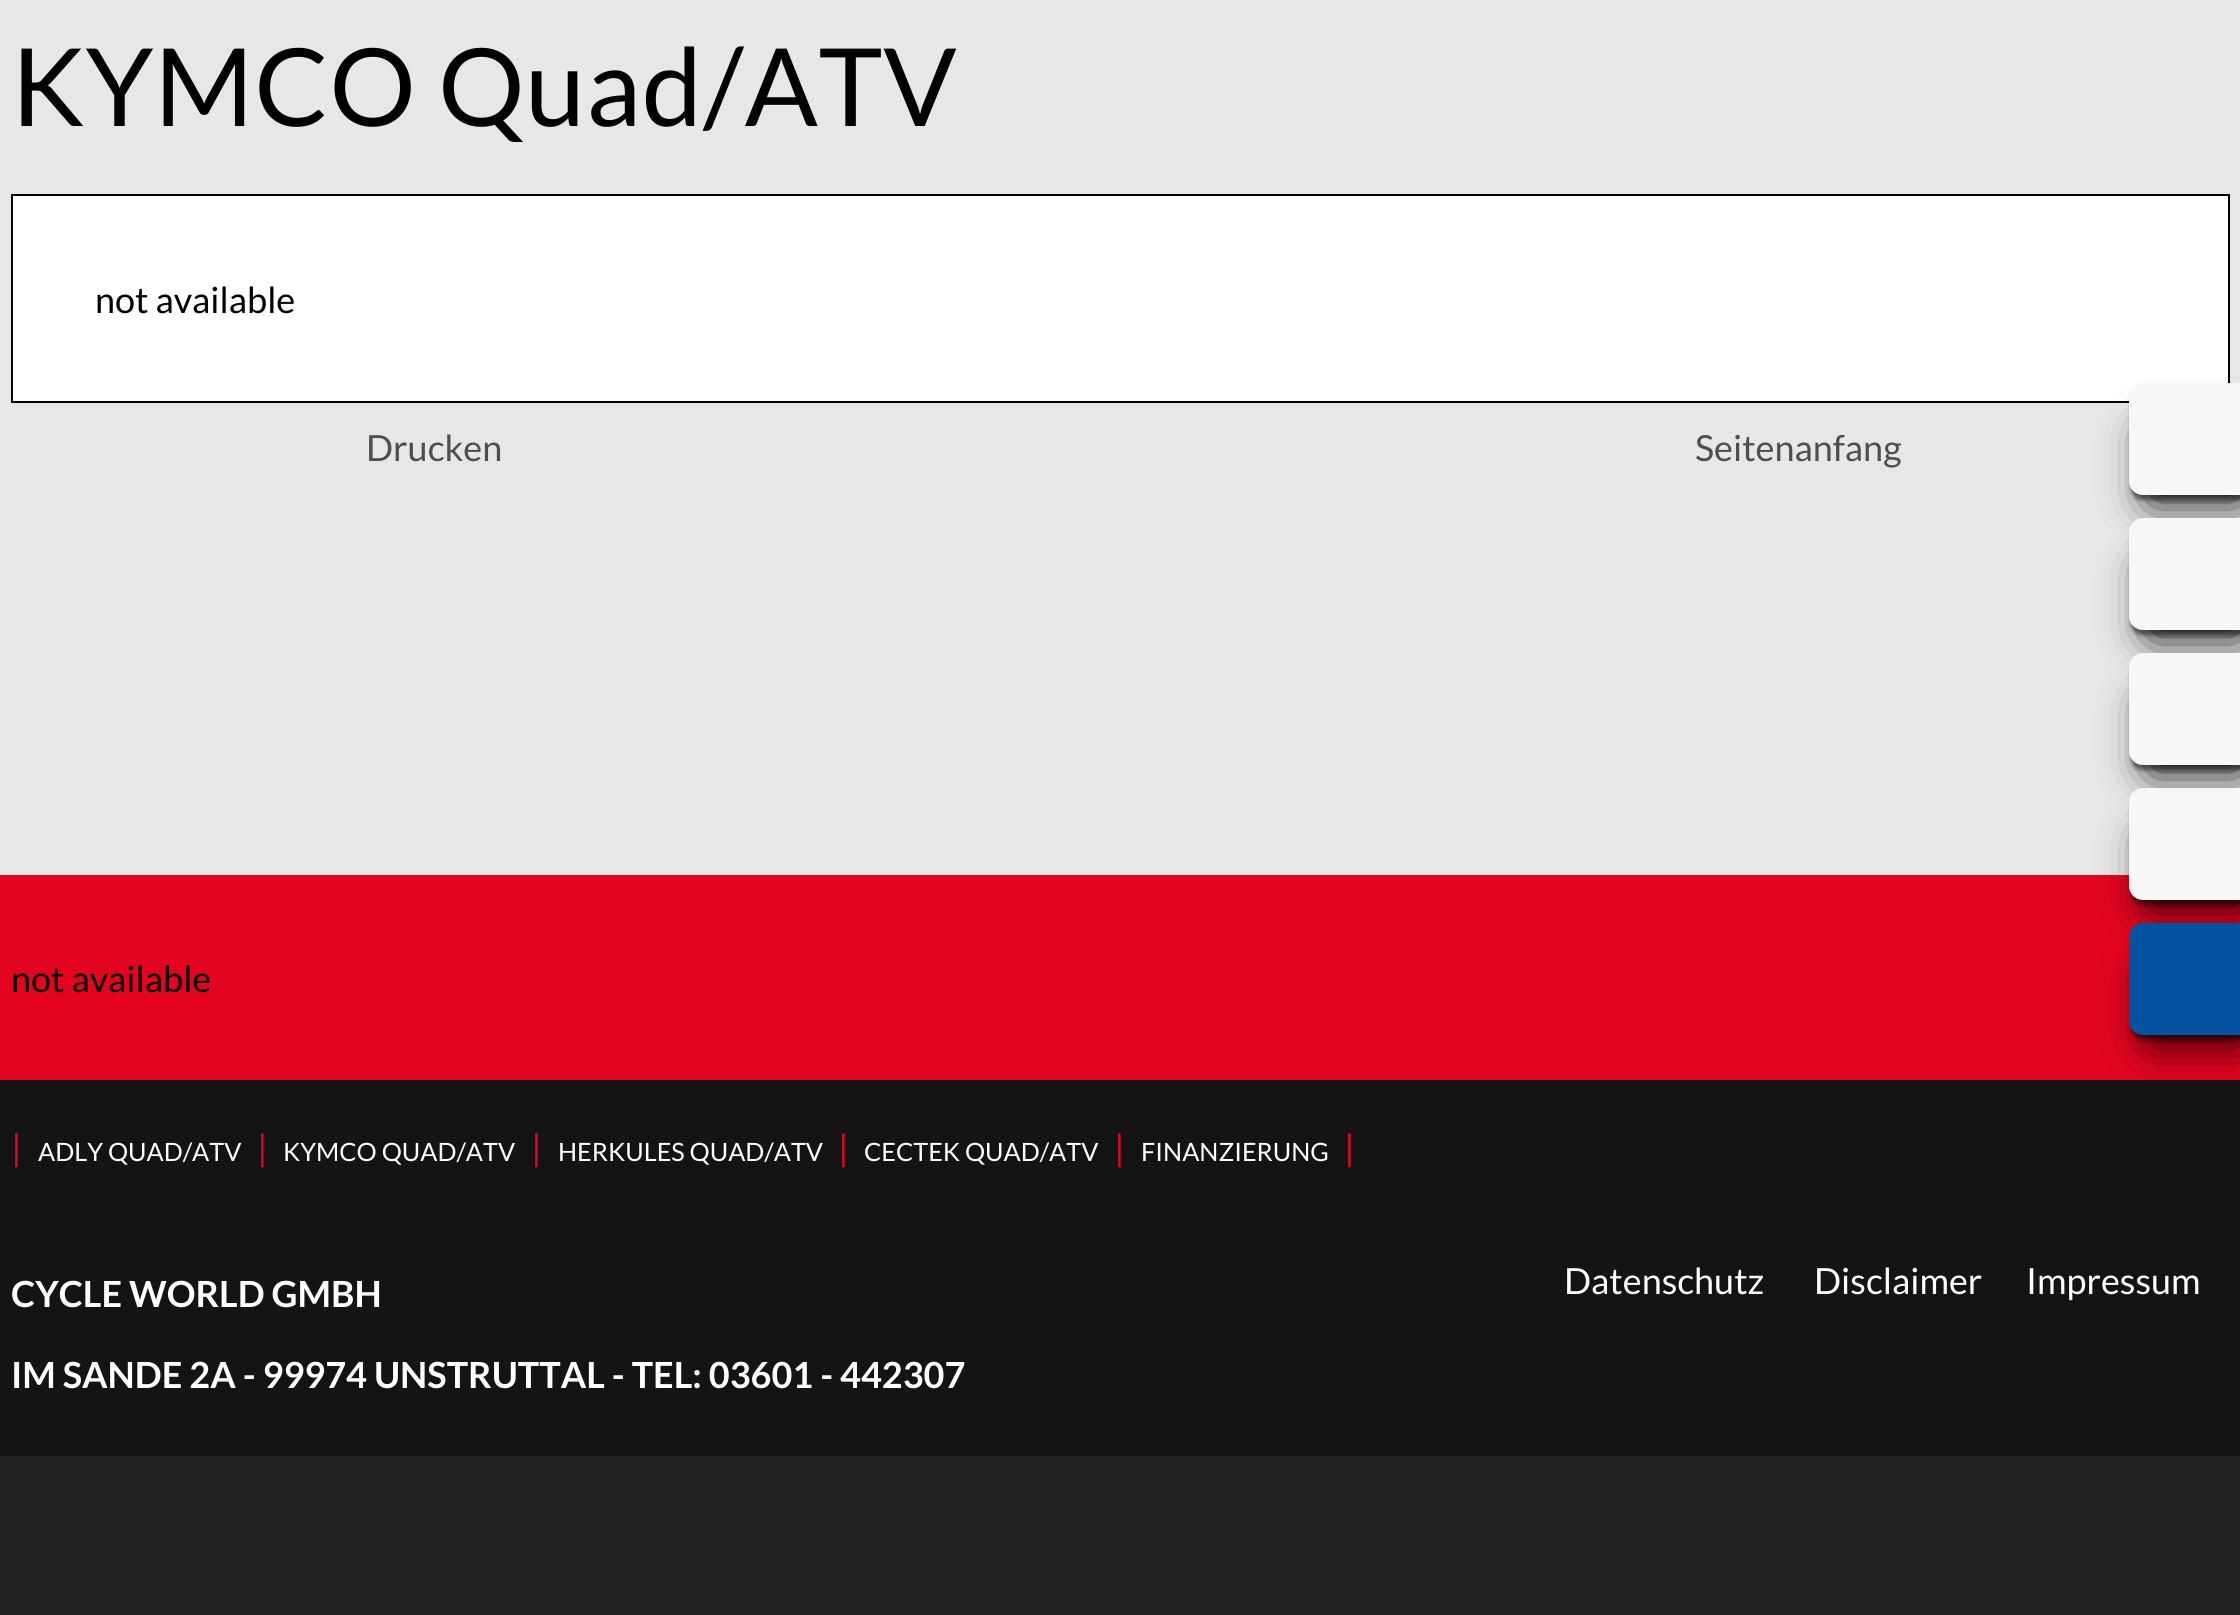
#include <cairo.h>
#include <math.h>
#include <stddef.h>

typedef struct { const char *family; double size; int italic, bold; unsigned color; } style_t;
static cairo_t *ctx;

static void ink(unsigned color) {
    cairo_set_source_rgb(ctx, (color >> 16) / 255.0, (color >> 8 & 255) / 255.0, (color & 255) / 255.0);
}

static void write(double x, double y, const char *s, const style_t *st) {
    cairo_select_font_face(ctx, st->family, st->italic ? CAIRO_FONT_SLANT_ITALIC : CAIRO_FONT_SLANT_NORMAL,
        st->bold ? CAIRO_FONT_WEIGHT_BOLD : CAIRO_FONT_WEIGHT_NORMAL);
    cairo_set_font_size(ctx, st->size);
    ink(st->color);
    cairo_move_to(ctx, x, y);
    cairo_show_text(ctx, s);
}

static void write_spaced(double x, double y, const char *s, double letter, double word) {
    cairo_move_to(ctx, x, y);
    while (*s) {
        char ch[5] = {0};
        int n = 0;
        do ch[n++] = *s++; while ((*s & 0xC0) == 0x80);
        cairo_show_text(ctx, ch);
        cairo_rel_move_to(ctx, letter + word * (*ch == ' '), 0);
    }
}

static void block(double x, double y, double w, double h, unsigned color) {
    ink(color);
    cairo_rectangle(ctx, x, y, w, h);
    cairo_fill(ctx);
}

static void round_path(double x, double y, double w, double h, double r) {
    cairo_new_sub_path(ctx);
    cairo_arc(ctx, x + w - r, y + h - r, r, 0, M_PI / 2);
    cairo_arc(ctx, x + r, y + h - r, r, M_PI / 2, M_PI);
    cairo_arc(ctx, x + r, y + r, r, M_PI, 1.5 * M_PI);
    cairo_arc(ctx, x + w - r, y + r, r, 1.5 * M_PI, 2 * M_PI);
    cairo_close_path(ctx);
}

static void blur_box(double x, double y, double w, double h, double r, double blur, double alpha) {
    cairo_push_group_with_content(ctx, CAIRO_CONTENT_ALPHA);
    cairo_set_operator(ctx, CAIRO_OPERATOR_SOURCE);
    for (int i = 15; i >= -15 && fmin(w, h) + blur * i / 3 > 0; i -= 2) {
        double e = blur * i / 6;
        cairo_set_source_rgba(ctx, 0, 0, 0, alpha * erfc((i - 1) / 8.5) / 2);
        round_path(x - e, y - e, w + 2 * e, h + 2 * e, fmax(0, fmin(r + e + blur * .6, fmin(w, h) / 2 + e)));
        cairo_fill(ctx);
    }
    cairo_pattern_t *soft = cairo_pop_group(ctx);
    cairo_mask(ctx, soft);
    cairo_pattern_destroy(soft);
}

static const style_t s1 = {"Lato", 36, 0, 0, 0x000000};
static const style_t s2 = {"Lato", 36, 0, 0, 0x4e4e4e};
static const style_t s3 = {"Lato", 36, 0, 0, 0xe30420};
static const style_t s4 = {"Lato", 25.25, 0, 0, 0xffffff};
static const style_t s5 = {"Lato", 36, 0, 1, 0xffffff};
static const style_t s6 = {"Lato", 36, 0, 0, 0xffffff};

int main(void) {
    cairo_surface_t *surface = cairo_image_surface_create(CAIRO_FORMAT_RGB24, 2240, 1615);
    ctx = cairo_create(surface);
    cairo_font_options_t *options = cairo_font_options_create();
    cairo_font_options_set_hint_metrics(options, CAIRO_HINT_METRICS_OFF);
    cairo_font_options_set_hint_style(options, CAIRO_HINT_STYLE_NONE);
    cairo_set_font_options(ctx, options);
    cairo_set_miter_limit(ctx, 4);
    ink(0x212121);
    cairo_paint(ctx);
    block(0, 0, 2240, 875, 0xe7e7e7);
    cairo_select_font_face(ctx, "Lato", CAIRO_FONT_SLANT_NORMAL, CAIRO_FONT_WEIGHT_NORMAL);
    cairo_set_font_size(ctx, 108);
    ink(0x000000);
    write_spaced(11, 126, "KYMCO Quad/ATV", 0.9, 0);
    ink(0xffffff);
    cairo_rectangle(ctx, 12, 195, 2217, 207);
    cairo_fill_preserve(ctx);
    ink(0x000000);
    cairo_stroke(ctx);
    write(95, 313, "not available", &s1);
    write(366, 461, "Drucken", &s2);
    write(1695, 461, "Seitenanfang", &s2);
    block(0, 875, 2240, 205, 0xe30420);
    write(11, 992, "not available", &s1);
    block(0, 1080, 2240, 376, 0x141414);
    write(11, 1161, "|", &s3);
    write(38, 1161, "ADLY QUAD/ATV", &s4);
    write(257, 1161, "|", &s3);
    write(283, 1161, "KYMCO QUAD/ATV", &s4);
    write(531, 1161, "|", &s3);
    write(558, 1161, "HERKULES QUAD/ATV", &s4);
    write(838, 1161, "|", &s3);
    write(864, 1161, "CECTEK QUAD/ATV", &s4);
    write(1114, 1161, "|", &s3);
    write(1141, 1161, "FINANZIERUNG", &s4);
    write(1344, 1161, "|", &s3);
    write(11, 1307, "CYCLE WORLD GMBH", &s5);
    write(11, 1388, "IM SANDE 2A - 99974 UNSTRUTTAL - TEL: 03601 - 442307", &s5);
    write(1564, 1294, "Datenschutz", &s6);
    write(1814, 1294, "Disclaimer", &s6);
    write(2026, 1294, "Impressum", &s6);
    ink(0x000000);
    blur_box(2151, 432, 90, 68, 0, 22.5, 1);
    blur_box(2131, 392, 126, 108, 11, 2, 0.5);
    ink(0xf7f7f7);
    round_path(2129, 383, 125, 112, 14);
    cairo_fill(ctx);
    ink(0x000000);
    blur_box(2151, 567, 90, 68, 0, 22.5, 1);
    blur_box(2131, 527, 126, 108, 11, 2, 0.5);
    ink(0xf7f7f7);
    round_path(2129, 518, 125, 112, 14);
    cairo_fill(ctx);
    ink(0x000000);
    blur_box(2151, 702, 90, 68, 0, 22.5, 1);
    blur_box(2131, 662, 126, 108, 11, 2, 0.5);
    ink(0xf7f7f7);
    round_path(2129, 653, 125, 112, 14);
    cairo_fill(ctx);
    ink(0x000000);
    blur_box(2151, 837, 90, 68, 0, 22.5, 1);
    blur_box(2131, 797, 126, 108, 11, 2, 0.5);
    ink(0xf7f7f7);
    round_path(2129, 788, 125, 112, 14);
    cairo_fill(ctx);
    ink(0x000000);
    blur_box(2151, 972, 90, 68, 0, 22.5, 1);
    blur_box(2131, 932, 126, 108, 11, 2, 0.5);
    ink(0x0552a0);
    round_path(2129, 923, 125, 112, 14);
    cairo_fill(ctx);
    cairo_surface_write_to_png(surface, "screenshot.png");
    cairo_font_options_destroy(options);
    cairo_destroy(ctx);
    cairo_surface_destroy(surface);
    return 0;
}
